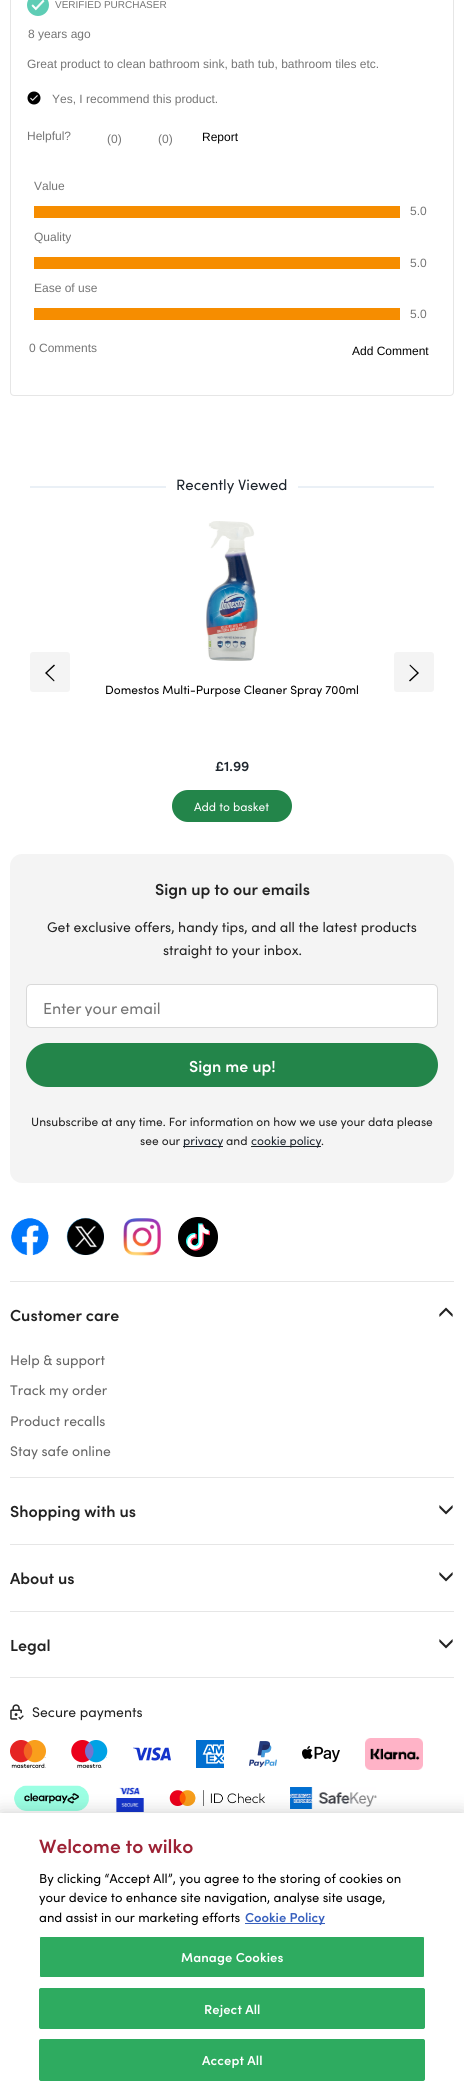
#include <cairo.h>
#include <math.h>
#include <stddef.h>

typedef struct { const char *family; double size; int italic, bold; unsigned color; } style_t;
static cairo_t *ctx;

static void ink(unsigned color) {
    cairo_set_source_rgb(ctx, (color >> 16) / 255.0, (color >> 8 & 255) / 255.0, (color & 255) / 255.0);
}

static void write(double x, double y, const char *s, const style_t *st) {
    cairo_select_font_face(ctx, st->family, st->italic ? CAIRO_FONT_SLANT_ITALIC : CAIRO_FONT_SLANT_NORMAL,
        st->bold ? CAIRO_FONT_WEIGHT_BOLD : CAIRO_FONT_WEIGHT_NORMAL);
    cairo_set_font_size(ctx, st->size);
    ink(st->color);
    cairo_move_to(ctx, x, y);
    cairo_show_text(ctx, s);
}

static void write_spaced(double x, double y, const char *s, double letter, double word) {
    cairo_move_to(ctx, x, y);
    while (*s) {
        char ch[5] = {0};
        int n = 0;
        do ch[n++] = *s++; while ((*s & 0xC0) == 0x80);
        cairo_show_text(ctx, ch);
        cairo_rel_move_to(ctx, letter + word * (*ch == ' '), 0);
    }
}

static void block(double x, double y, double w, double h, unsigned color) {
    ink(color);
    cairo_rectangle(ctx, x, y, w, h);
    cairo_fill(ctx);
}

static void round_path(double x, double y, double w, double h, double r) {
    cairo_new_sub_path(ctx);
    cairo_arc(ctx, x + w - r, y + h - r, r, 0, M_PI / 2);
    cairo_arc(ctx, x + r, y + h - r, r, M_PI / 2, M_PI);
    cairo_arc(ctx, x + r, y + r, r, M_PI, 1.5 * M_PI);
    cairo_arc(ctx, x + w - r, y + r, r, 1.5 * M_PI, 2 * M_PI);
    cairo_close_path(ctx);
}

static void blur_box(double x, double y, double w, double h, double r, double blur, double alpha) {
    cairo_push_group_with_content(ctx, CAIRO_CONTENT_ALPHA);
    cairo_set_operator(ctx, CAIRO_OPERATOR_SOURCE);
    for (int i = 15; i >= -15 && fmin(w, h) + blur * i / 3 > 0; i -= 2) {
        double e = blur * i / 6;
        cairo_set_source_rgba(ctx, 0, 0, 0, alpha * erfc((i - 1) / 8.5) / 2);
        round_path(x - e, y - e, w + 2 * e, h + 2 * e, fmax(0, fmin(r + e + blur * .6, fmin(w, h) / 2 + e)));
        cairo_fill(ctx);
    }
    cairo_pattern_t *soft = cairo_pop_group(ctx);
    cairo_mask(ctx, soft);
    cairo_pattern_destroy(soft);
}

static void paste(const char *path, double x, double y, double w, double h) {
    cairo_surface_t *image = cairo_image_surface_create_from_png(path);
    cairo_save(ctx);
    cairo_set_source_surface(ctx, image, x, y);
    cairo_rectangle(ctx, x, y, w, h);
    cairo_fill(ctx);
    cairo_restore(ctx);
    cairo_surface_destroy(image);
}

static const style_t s1 = {"Liberation Sans", 10, 0, 0, 0x757575};
static const style_t s2 = {"Liberation Sans", 12, 0, 0, 0x757575};
static const style_t s3 = {"Liberation Sans", 12, 0, 0, 0x000000};
static const style_t s4 = {"Sofia", 15, 0, 0, 0x1d252d};
static const style_t s5 = {"Sofia", 12, 0, 0, 0x000000};
static const style_t s6 = {"Sofia SemiBold", 14, 0, 0, 0x1d252d};
static const style_t s7 = {"Sofia", 12, 0, 0, 0xffffff};
static const style_t s8 = {"Sofia SemiBold", 16, 0, 0, 0x222222};
static const style_t s9 = {"Sofia", 14, 0, 0, 0x222222};
static const style_t s10 = {"Sofia SemiBold", 16, 0, 0, 0xffffff};
static const style_t s11 = {"Sofia", 12, 0, 0, 0x222222};
static const style_t s12 = {"Sofia", 12, 0, 0, 0x1d252d};
static const style_t s13 = {"Sofia", 14, 0, 0, 0x666666};
static const style_t s14 = {"Sofia SemiBold", 19.25, 0, 0, 0x9d2235};
static const style_t s15 = {"Sofia", 13, 0, 0, 0x000000};
static const style_t s16 = {"Sofia SemiBold", 13, 0, 0, 0x3860be};

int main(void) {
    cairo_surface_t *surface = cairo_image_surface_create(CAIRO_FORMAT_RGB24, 464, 2091);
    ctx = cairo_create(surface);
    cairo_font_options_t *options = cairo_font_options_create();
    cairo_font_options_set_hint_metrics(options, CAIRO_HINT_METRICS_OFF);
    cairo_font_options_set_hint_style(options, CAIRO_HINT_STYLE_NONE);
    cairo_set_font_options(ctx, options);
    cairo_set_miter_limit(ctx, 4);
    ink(0xffffff);
    cairo_paint(ctx);
    round_path(10.5, -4.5, 443, 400, 3.5);
    ink(0xe6e6e6);
    cairo_set_line_width(ctx, 1);
    cairo_stroke(ctx);
    paste("pic1.png", 27, 0, 22, 16);
    write(55, 8, "VERIFIED PURCHASER", &s1);
    write(28, 38, "8 years ago", &s2);
    write(27, 68, "Great product to clean bathroom sink, bath tub, bathroom tiles etc.", &s2);
    paste("pic2.png", 27, 91, 14, 14);
    write(52, 103, "Yes, I recommend this product.", &s2);
    write(27, 140, "Helpful?", &s2);
    write(107, 143, "(0)", &s2);
    write(158, 143, "(0)", &s2);
    write(202, 141, "Report", &s3);
    write(34, 190, "Value", &s2);
    block(34, 206, 366, 12, 0xf68d00);
    write(410, 215, "5.0", &s2);
    write(34, 241, "Quality", &s2);
    block(34, 257, 366, 12, 0xf68d00);
    write(410, 267, "5.0", &s2);
    write(34, 292, "Ease of use", &s2);
    block(34, 308, 366, 12, 0xf68d00);
    write(410, 318, "5.0", &s2);
    write(29, 352, "0 Comments", &s2);
    write(352, 355, "Add Comment", &s3);
    block(30, 486, 404, 2, 0xeaf0f6);
    block(166, 486, 132, 2, 0xffffff);
    write(176, 490, "Recently Viewed", &s4);
    ink(0xf4f4f4);
    round_path(30, 652, 40, 40, 3);
    cairo_fill(ctx);
    ink(0x000000);
    cairo_new_path(ctx);
    cairo_move_to(ctx, 54, 681.5);
    cairo_line_to(ctx, 45, 673);
    cairo_line_to(ctx, 54, 664.5);
    cairo_line_to(ctx, 55, 665.5);
    cairo_line_to(ctx, 47, 673);
    cairo_line_to(ctx, 54.5, 680.5);
    cairo_close_path(ctx);
    cairo_fill(ctx);
    ink(0xf4f4f4);
    round_path(394, 652, 40, 40, 3);
    cairo_fill(ctx);
    ink(0x000000);
    cairo_new_path(ctx);
    cairo_move_to(ctx, 410, 664.5);
    cairo_line_to(ctx, 419, 673);
    cairo_line_to(ctx, 410, 681.5);
    cairo_line_to(ctx, 409, 680.5);
    cairo_line_to(ctx, 417, 673);
    cairo_line_to(ctx, 409.5, 665.5);
    cairo_close_path(ctx);
    cairo_fill(ctx);
    paste("pic3.png", 206, 521, 52, 140);
    write(105, 694, "Domestos Multi-Purpose Cleaner Spray 700ml", &s5);
    write(215, 771, "£1.99", &s6);
    ink(0x23854a);
    round_path(172, 790, 120, 32, 16);
    cairo_fill(ctx);
    write(194, 811, "Add to basket", &s7);
    ink(0xf4f4f4);
    round_path(10, 854, 444, 329, 12);
    cairo_fill(ctx);
    write(155, 895, "Sign up to our emails", &s8);
    write(47, 932, "Get exclusive offers, handy tips, and all the latest products", &s9);
    write(163, 955, "straight to your inbox.", &s9);
    ink(0xffffff);
    round_path(26.5, 984.5, 411, 43, 4.5);
    cairo_fill_preserve(ctx);
    ink(0xd9d9d9);
    cairo_stroke(ctx);
    cairo_save(ctx);
    cairo_rectangle(ctx, 43, 996, 378, 20);
    cairo_clip(ctx);
    cairo_set_font_size(ctx, 16);
    ink(0x757575);
    write_spaced(43, 1014, "Enter your email", 0, -1);
    cairo_restore(ctx);
    ink(0x23854a);
    round_path(27.5, 1044.5, 409, 41, 20.5);
    cairo_fill_preserve(ctx);
    cairo_set_line_width(ctx, 3);
    cairo_stroke(ctx);
    write(189, 1072, "Sign me up!", &s10);
    write(31, 1126, "Unsubscribe at any time. For information on how we use your data please", &s11);
    write(140, 1145, "see our", &s11);
    block(183, 1146, 40, 1, 0x1d252d);
    write(183, 1145, "privacy", &s12);
    write(226, 1145, "and", &s11);
    block(251, 1146, 70, 1, 0x1d252d);
    write(251, 1145, "cookie policy", &s12);
    write(321, 1145, ".", &s11);
    block(10, 1677, 444, 1, 0xe6e6e6);
    paste("pic4.png", 11, 1218, 38, 37);
    paste("pic5.png", 66, 1217, 38, 39);
    paste("pic6.png", 123, 1218, 38, 38);
    paste("pic7.png", 178, 1217, 40, 40);
    block(10, 1281, 444, 1, 0xe6e6e6);
    write(10, 1321, "Customer care", &s8);
    paste("pic8.png", 439, 1307, 14, 10);
    write(10, 1365, "Help & support", &s13);
    write(10, 1395, "Track my order", &s13);
    write(10, 1426, "Product recalls", &s13);
    write(10, 1456, "Stay safe online", &s13);
    block(10, 1477, 444, 1, 0xe6e6e6);
    write(10, 1517, "Shopping with us", &s8);
    paste("pic9.png", 439, 1505, 14, 10);
    block(10, 1544, 444, 1, 0xe6e6e6);
    write(10, 1584, "About us", &s8);
    paste("pic9.png", 439, 1572, 14, 10);
    block(10, 1611, 444, 1, 0xe6e6e6);
    write(10, 1651, "Legal", &s8);
    paste("pic9.png", 439, 1639, 14, 10);
    paste("pic10.png", 10, 1704, 14, 16);
    write(32, 1717, "Secure payments", &s9);
    paste("pic11.png", 10, 1740, 36, 28);
    paste("pic12.png", 71, 1740, 37, 28);
    paste("pic13.png", 133, 1747, 38, 14);
    paste("pic14.png", 196, 1740, 28, 28);
    paste("pic15.png", 249, 1741, 28, 27);
    paste("pic16.png", 302, 1746, 38, 17);
    paste("pic17.png", 365, 1738, 58, 32);
    paste("pic18.png", 14, 1785, 75, 26);
    paste("pic19.png", 116, 1787, 28, 25);
    paste("pic20.png", 169, 1790, 96, 16);
    paste("pic21.png", 290, 1787, 87, 22);
    ink(0x000000);
    blur_box(0, 1813, 464, 278, 0, 9, 0.2);
    block(0, 1813, 464, 278, 0xffffff);
    write(39, 1853, "Welcome to wilko", &s14);
    write(39, 1883, "By clicking “Accept All”, you agree to the storing of cookies on", &s15);
    write(39, 1902, "your device to enhance site navigation, analyse site usage,", &s15);
    write(39, 1922, "and assist in our marketing efforts", &s15);
    block(245, 1923, 80, 1, 0x3860be);
    write(245, 1922, "Cookie Policy", &s16);
    ink(0x2eab60);
    round_path(39.5, 1936.5, 385, 41, 1.5);
    cairo_fill_preserve(ctx);
    ink(0xffffff);
    cairo_set_line_width(ctx, 1);
    cairo_stroke(ctx);
    write_spaced(181, 1962, "Manage Cookies", 0.1, 0);
    ink(0x2eab60);
    round_path(39.5, 1988.5, 385, 40, 1.5);
    cairo_fill_preserve(ctx);
    cairo_stroke(ctx);
    ink(0xffffff);
    write_spaced(204, 2014, "Reject All", 0.1, 0);
    ink(0x2eab60);
    round_path(39.5, 2039.5, 385, 41, 1.5);
    cairo_fill_preserve(ctx);
    cairo_stroke(ctx);
    ink(0xffffff);
    write_spaced(202, 2065, "Accept All", 0.1, 0);
    cairo_surface_write_to_png(surface, "screenshot.png");
    cairo_font_options_destroy(options);
    cairo_destroy(ctx);
    cairo_surface_destroy(surface);
    return 0;
}
